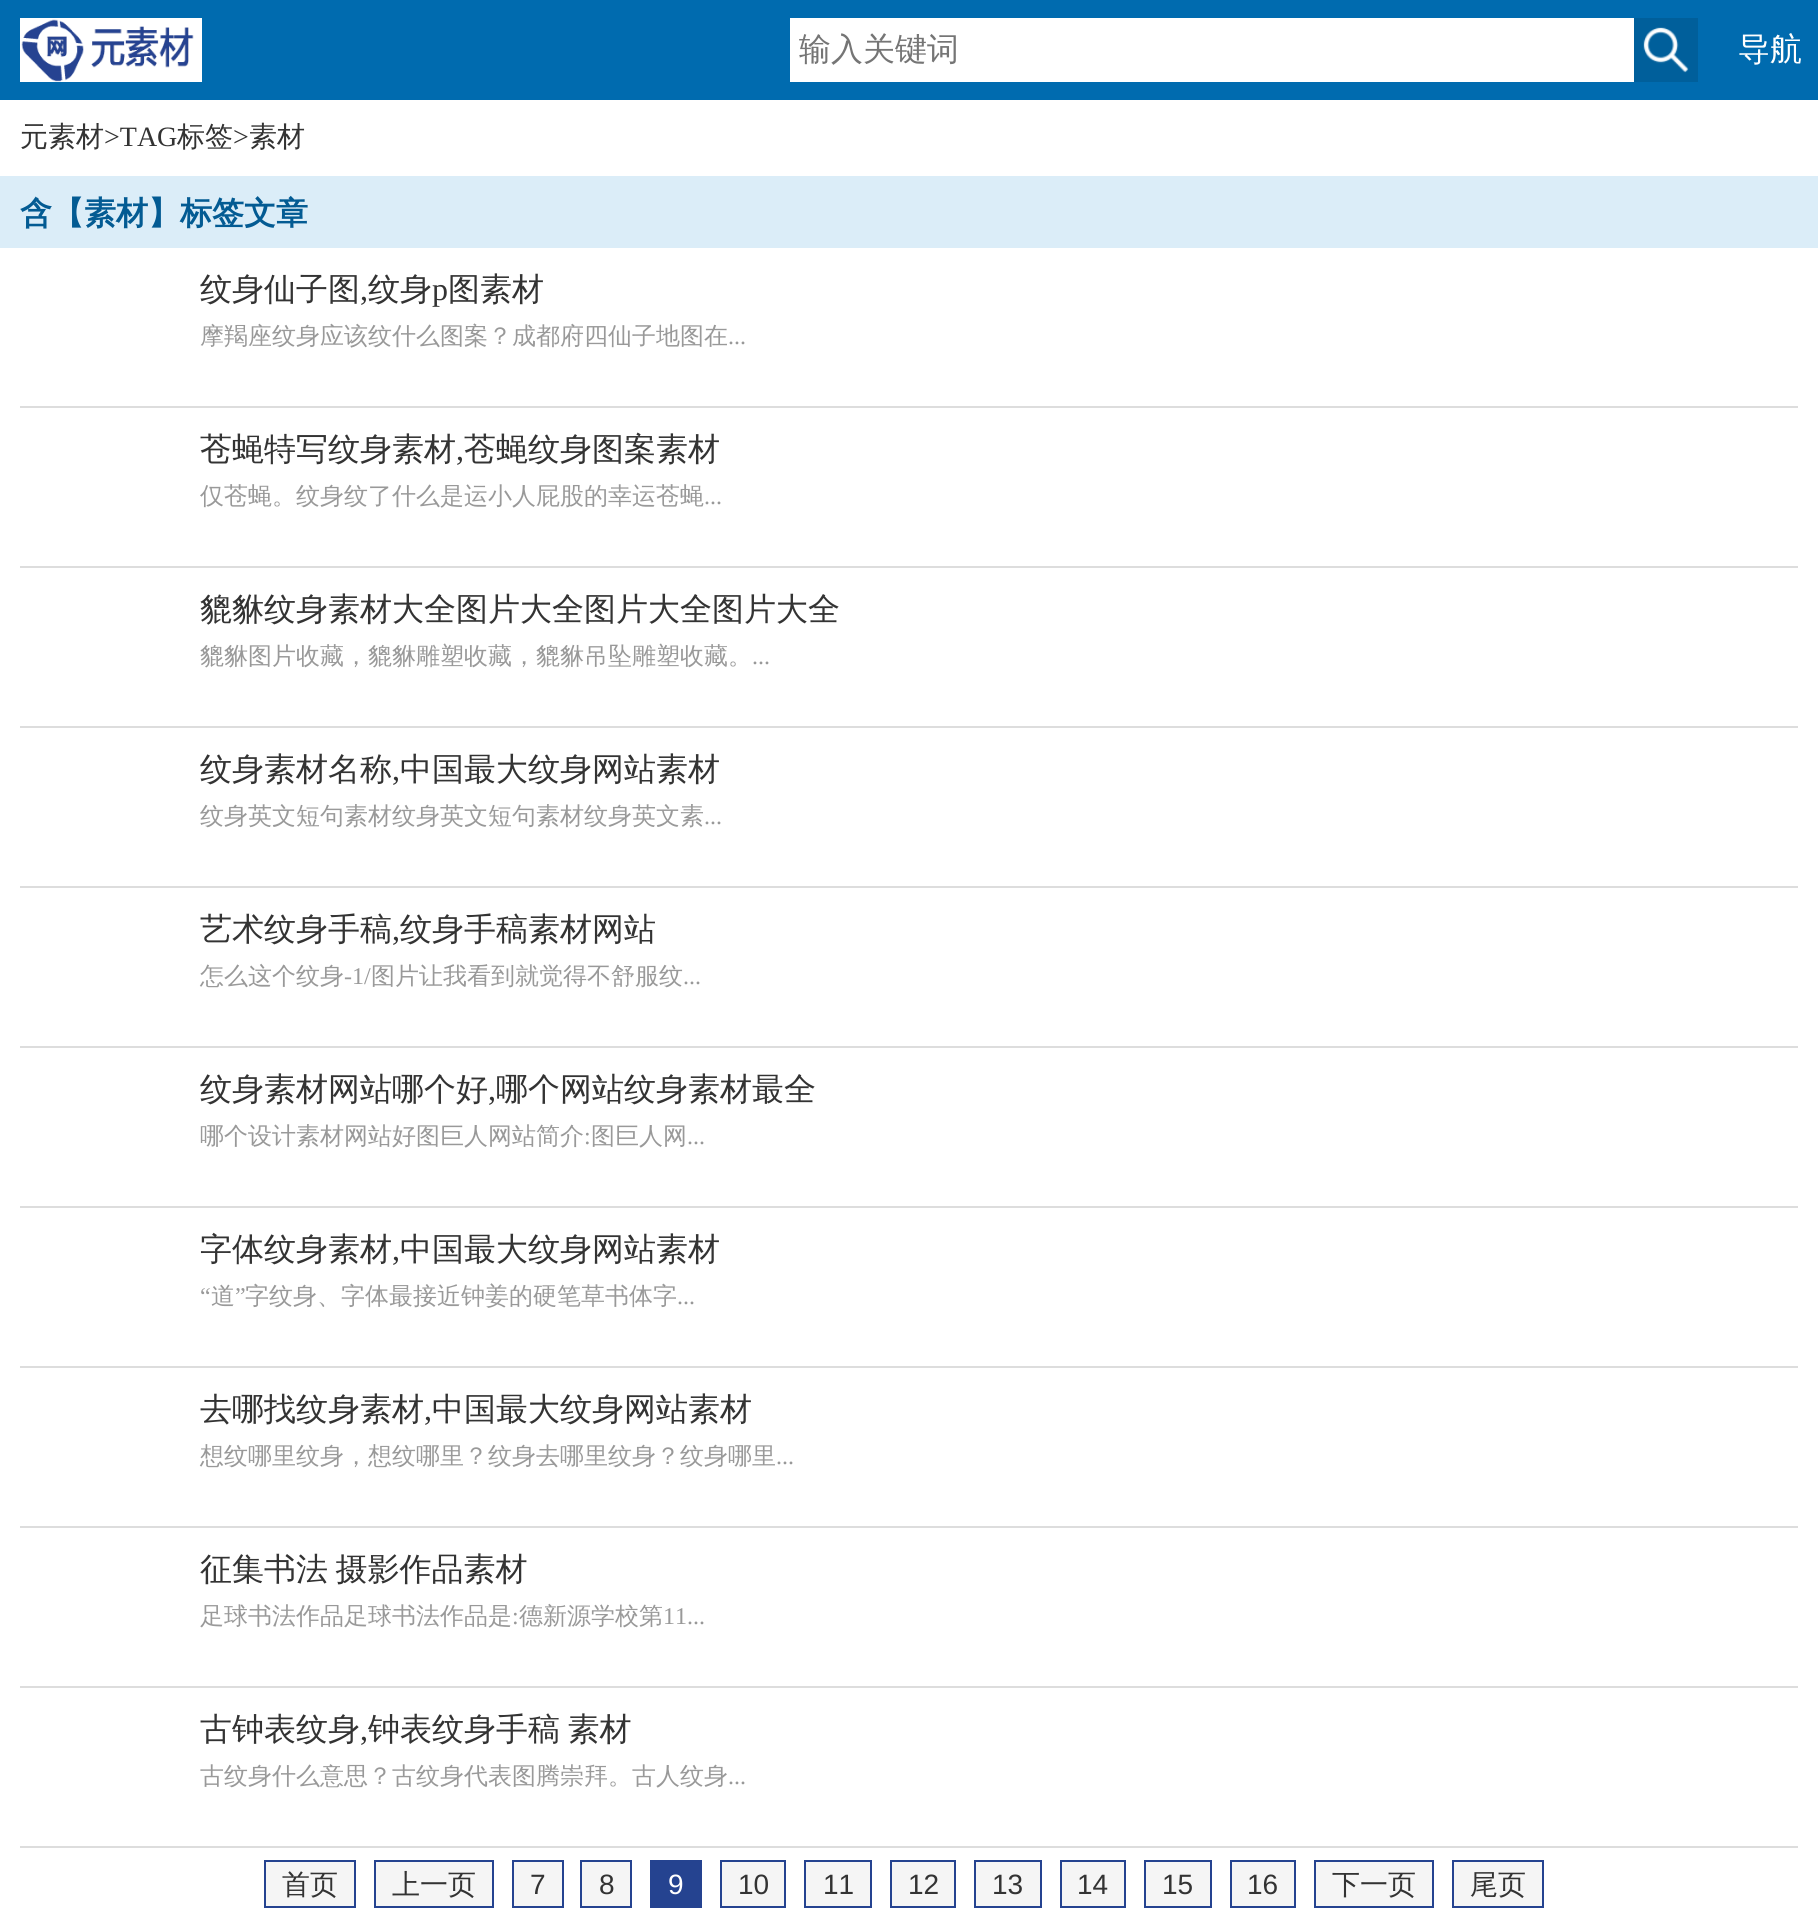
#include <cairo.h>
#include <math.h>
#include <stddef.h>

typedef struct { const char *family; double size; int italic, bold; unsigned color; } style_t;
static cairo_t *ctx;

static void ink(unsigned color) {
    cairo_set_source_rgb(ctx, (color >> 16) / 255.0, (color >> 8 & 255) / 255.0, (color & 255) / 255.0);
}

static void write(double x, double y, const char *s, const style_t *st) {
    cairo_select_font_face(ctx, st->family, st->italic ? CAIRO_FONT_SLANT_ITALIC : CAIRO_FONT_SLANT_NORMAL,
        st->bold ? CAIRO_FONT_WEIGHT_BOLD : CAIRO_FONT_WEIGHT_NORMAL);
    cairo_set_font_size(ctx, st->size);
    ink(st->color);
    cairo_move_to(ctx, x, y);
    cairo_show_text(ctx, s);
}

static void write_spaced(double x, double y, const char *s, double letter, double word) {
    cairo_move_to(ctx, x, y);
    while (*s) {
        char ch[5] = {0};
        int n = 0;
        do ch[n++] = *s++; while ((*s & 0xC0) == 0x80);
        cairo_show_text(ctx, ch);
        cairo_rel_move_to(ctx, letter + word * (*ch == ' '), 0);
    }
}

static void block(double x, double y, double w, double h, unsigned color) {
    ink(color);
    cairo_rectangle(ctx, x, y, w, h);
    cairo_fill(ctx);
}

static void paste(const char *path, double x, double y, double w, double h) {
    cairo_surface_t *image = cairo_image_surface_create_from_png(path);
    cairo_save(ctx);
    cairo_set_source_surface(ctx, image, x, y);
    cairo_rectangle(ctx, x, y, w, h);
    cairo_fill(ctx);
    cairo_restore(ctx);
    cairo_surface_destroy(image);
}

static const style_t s1 = {"WenQuanYi Zen Hei Medium", 32, 0, 0, 0x757575};
static const style_t s2 = {"WenQuanYi Zen Hei Medium", 32, 0, 0, 0xffffff};
static const style_t s3 = {"WenQuanYi Zen Hei Medium", 28, 0, 0, 0x333333};
static const style_t s4 = {"Liberation Serif", 28, 0, 0, 0x333333};
static const style_t s5 = {"WenQuanYi Zen Hei", 32, 0, 1, 0x035b93};
static const style_t s6 = {"WenQuanYi Zen Hei Medium", 32, 0, 0, 0x333333};
static const style_t s7 = {"Liberation Serif", 32, 0, 0, 0x333333};
static const style_t s8 = {"WenQuanYi Zen Hei Medium", 24, 0, 0, 0x999999};
static const style_t s9 = {"Liberation Serif", 24, 0, 0, 0x999999};
static const style_t s10 = {"Liberation Sans", 28, 0, 0, 0x333333};
static const style_t s11 = {"Liberation Sans", 28, 0, 0, 0xffffff};

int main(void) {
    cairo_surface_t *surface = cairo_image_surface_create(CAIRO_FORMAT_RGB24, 1818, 1918);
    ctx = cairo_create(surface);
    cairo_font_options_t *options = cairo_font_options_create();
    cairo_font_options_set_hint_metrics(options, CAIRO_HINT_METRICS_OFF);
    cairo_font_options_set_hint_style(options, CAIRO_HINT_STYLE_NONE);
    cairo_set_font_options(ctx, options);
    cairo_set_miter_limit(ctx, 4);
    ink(0xffffff);
    cairo_paint(ctx);
    block(0, 0, 1818, 100, 0x006baf);
    paste("pic1.png", 20, 18, 182, 64);
    block(790, 18, 844, 64, 0xffffff);
    write(799, 60, "输入关键词", &s1);
    block(1634, 18, 64, 64, 0x005f9b);
    paste("pic2.png", 1643, 27, 46, 46);
    write(1738, 60, "导航", &s2);
    block(0, 176, 1818, 72, 0xdbedf8);
    write(20, 146, "元素材", &s3);
    write(104, 146, ">TAG", &s4);
    write(177, 146, "标签", &s3);
    write(233, 146, ">", &s4);
    write(249, 146, "素材", &s3);
    write(20, 224, "含【素材】标签文章", &s5);
    block(20, 406, 1778, 2, 0xdddddd);
    write(200, 300, "纹身仙子图", &s6);
    write(360, 300, ",", &s7);
    write(368, 300, "纹身", &s6);
    write(432, 300, "p", &s7);
    write(448, 300, "图素材", &s6);
    write(200, 344, "摩羯座纹身应该纹什么图案？成都府四仙子地图在", &s8);
    write(728, 344, "...", &s9);
    block(20, 566, 1778, 2, 0xdddddd);
    write(200, 460, "苍蝇特写纹身素材", &s6);
    write(456, 460, ",", &s7);
    write(464, 460, "苍蝇纹身图案素材", &s6);
    write(200, 504, "仅苍蝇。纹身纹了什么是运小人屁股的幸运苍蝇", &s8);
    write(704, 504, "...", &s9);
    block(20, 726, 1778, 2, 0xdddddd);
    write(200, 620, "貔貅纹身素材大全图片大全图片大全图片大全", &s6);
    write(200, 664, "貔貅图片收藏，貔貅雕塑收藏，貔貅吊坠雕塑收藏。", &s8);
    write(752, 664, "...", &s9);
    block(20, 886, 1778, 2, 0xdddddd);
    write(200, 780, "纹身素材名称", &s6);
    write(392, 780, ",", &s7);
    write(400, 780, "中国最大纹身网站素材", &s6);
    write(200, 824, "纹身英文短句素材纹身英文短句素材纹身英文素", &s8);
    write(704, 824, "...", &s9);
    block(20, 1046, 1778, 2, 0xdddddd);
    write(200, 940, "艺术纹身手稿", &s6);
    write(392, 940, ",", &s7);
    write(400, 940, "纹身手稿素材网站", &s6);
    write(200, 984, "怎么这个纹身", &s8);
    write(344, 984, "-1/", &s9);
    write(371, 984, "图片让我看到就觉得不舒服纹", &s8);
    write(683, 984, "...", &s9);
    block(20, 1206, 1778, 2, 0xdddddd);
    write(200, 1100, "纹身素材网站哪个好", &s6);
    write(488, 1100, ",", &s7);
    write(496, 1100, "哪个网站纹身素材最全", &s6);
    write(200, 1144, "哪个设计素材网站好图巨人网站简介", &s8);
    write(584, 1144, ":", &s9);
    write(591, 1144, "图巨人网", &s8);
    write(687, 1144, "...", &s9);
    block(20, 1366, 1778, 2, 0xdddddd);
    write(200, 1260, "字体纹身素材", &s6);
    write(392, 1260, ",", &s7);
    write(400, 1260, "中国最大纹身网站素材", &s6);
    write(200, 1304, "“", &s9);
    write(211, 1304, "道", &s8);
    write(235, 1304, "”", &s9);
    write(245, 1304, "字纹身、字体最接近钟姜的硬笔草书体字", &s8);
    write(677, 1304, "...", &s9);
    block(20, 1526, 1778, 2, 0xdddddd);
    write(200, 1420, "去哪找纹身素材", &s6);
    write(424, 1420, ",", &s7);
    write(432, 1420, "中国最大纹身网站素材", &s6);
    write(200, 1464, "想纹哪里纹身，想纹哪里？纹身去哪里纹身？纹身哪里", &s8);
    write(776, 1464, "...", &s9);
    block(20, 1686, 1778, 2, 0xdddddd);
    cairo_select_font_face(ctx, "WenQuanYi Zen Hei Medium", CAIRO_FONT_SLANT_NORMAL, CAIRO_FONT_WEIGHT_NORMAL);
    cairo_set_font_size(ctx, 32);
    ink(0x333333);
    write_spaced(200, 1580, "征集书法 摄影作品素材", 0, -2);
    write(200, 1624, "足球书法作品足球书法作品是", &s8);
    write(512, 1624, ":", &s9);
    write(519, 1624, "德新源学校第", &s8);
    write(663, 1624, "11...", &s9);
    block(20, 1846, 1778, 2, 0xdddddd);
    write(200, 1740, "古钟表纹身", &s6);
    write(360, 1740, ",", &s7);
    cairo_select_font_face(ctx, "WenQuanYi Zen Hei Medium", CAIRO_FONT_SLANT_NORMAL, CAIRO_FONT_WEIGHT_NORMAL);
    write_spaced(368, 1740, "钟表纹身手稿 素材", 0, -2);
    write(200, 1784, "古纹身什么意思？古纹身代表图腾崇拜。古人纹身", &s8);
    write(728, 1784, "...", &s9);
    ink(0xf5f5f5);
    cairo_rectangle(ctx, 265, 1861, 90, 46);
    cairo_fill_preserve(ctx);
    ink(0x254390);
    cairo_stroke(ctx);
    write(282, 1894, "首页", &s3);
    ink(0xf5f5f5);
    cairo_rectangle(ctx, 375, 1861, 118, 46);
    cairo_fill_preserve(ctx);
    ink(0x254390);
    cairo_stroke(ctx);
    write(392, 1894, "上一页", &s3);
    ink(0xf5f5f5);
    cairo_rectangle(ctx, 513, 1861, 50, 46);
    cairo_fill_preserve(ctx);
    ink(0x254390);
    cairo_stroke(ctx);
    write(530, 1894, "7", &s10);
    ink(0xf5f5f5);
    cairo_rectangle(ctx, 581, 1861, 50, 46);
    cairo_fill_preserve(ctx);
    ink(0x254390);
    cairo_stroke(ctx);
    write(599, 1894, "8", &s10);
    block(650, 1860, 52, 48, 0x254390);
    write(668, 1894, "9", &s11);
    ink(0xf5f5f5);
    cairo_rectangle(ctx, 721, 1861, 64, 46);
    cairo_fill_preserve(ctx);
    ink(0x254390);
    cairo_stroke(ctx);
    write(738, 1894, "10", &s10);
    ink(0xf5f5f5);
    cairo_rectangle(ctx, 805, 1861, 66, 46);
    cairo_fill_preserve(ctx);
    ink(0x254390);
    cairo_stroke(ctx);
    write(823, 1894, "11", &s10);
    ink(0xf5f5f5);
    cairo_rectangle(ctx, 891, 1861, 64, 46);
    cairo_fill_preserve(ctx);
    ink(0x254390);
    cairo_stroke(ctx);
    write(908, 1894, "12", &s10);
    ink(0xf5f5f5);
    cairo_rectangle(ctx, 975, 1861, 66, 46);
    cairo_fill_preserve(ctx);
    ink(0x254390);
    cairo_stroke(ctx);
    write(992, 1894, "13", &s10);
    ink(0xf5f5f5);
    cairo_rectangle(ctx, 1061, 1861, 64, 46);
    cairo_fill_preserve(ctx);
    ink(0x254390);
    cairo_stroke(ctx);
    write(1077, 1894, "14", &s10);
    ink(0xf5f5f5);
    cairo_rectangle(ctx, 1145, 1861, 66, 46);
    cairo_fill_preserve(ctx);
    ink(0x254390);
    cairo_stroke(ctx);
    write(1162, 1894, "15", &s10);
    ink(0xf5f5f5);
    cairo_rectangle(ctx, 1231, 1861, 64, 46);
    cairo_fill_preserve(ctx);
    ink(0x254390);
    cairo_stroke(ctx);
    write(1247, 1894, "16", &s10);
    ink(0xf5f5f5);
    cairo_rectangle(ctx, 1315, 1861, 118, 46);
    cairo_fill_preserve(ctx);
    ink(0x254390);
    cairo_stroke(ctx);
    write(1332, 1894, "下一页", &s3);
    ink(0xf5f5f5);
    cairo_rectangle(ctx, 1453, 1861, 90, 46);
    cairo_fill_preserve(ctx);
    ink(0x254390);
    cairo_stroke(ctx);
    write(1470, 1894, "尾页", &s3);
    cairo_surface_write_to_png(surface, "screenshot.png");
    cairo_font_options_destroy(options);
    cairo_destroy(ctx);
    cairo_surface_destroy(surface);
    return 0;
}
